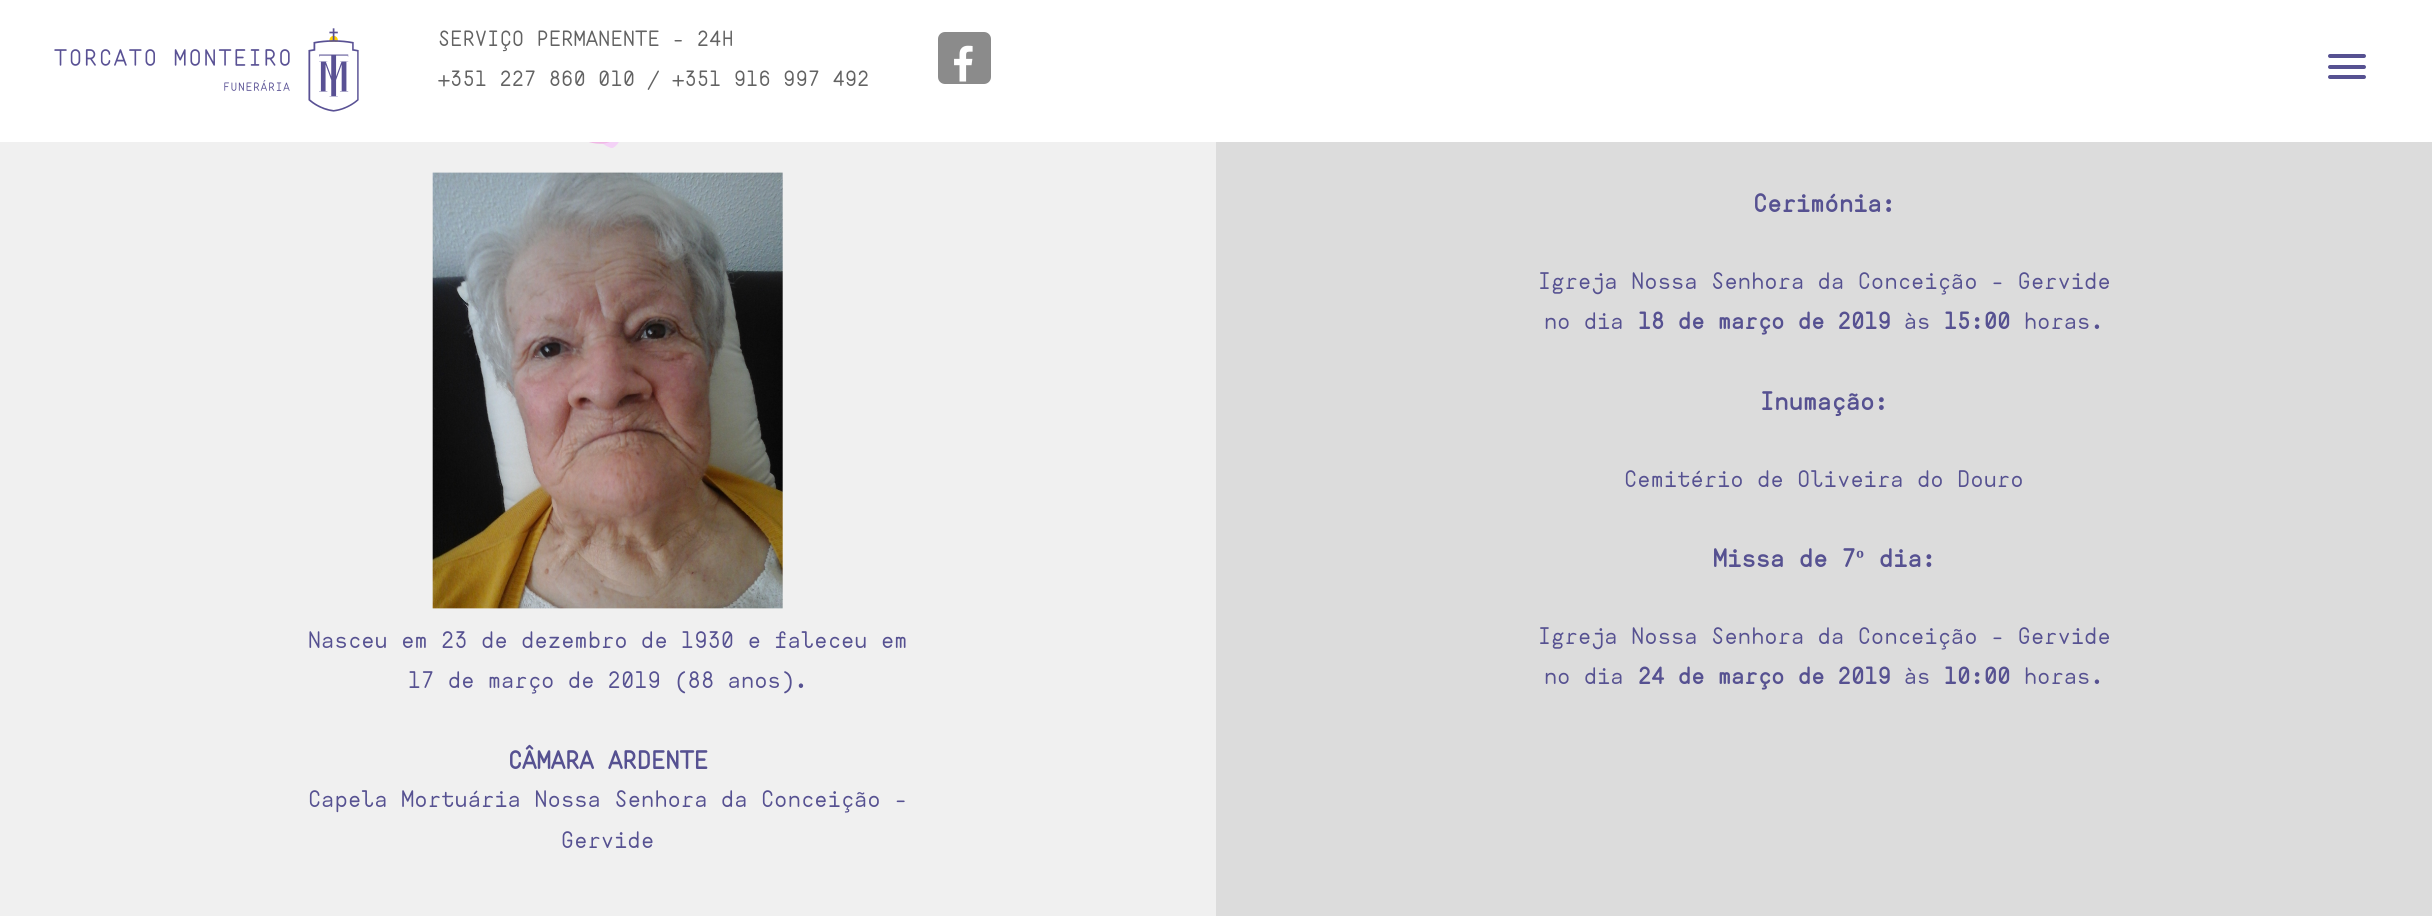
#include <cairo.h>
#include <math.h>
#include <stddef.h>

static cairo_t *ctx;

static void ink(unsigned color) {
    cairo_set_source_rgb(ctx, (color >> 16) / 255.0, (color >> 8 & 255) / 255.0, (color & 255) / 255.0);
}

static void write_spaced(double x, double y, const char *s, double letter, double word) {
    cairo_move_to(ctx, x, y);
    while (*s) {
        char ch[5] = {0};
        int n = 0;
        do ch[n++] = *s++; while ((*s & 0xC0) == 0x80);
        cairo_show_text(ctx, ch);
        cairo_rel_move_to(ctx, letter + word * (*ch == ' '), 0);
    }
}

static void block(double x, double y, double w, double h, unsigned color) {
    ink(color);
    cairo_rectangle(ctx, x, y, w, h);
    cairo_fill(ctx);
}

static void round_path(double x, double y, double w, double h, double r) {
    cairo_new_sub_path(ctx);
    cairo_arc(ctx, x + w - r, y + h - r, r, 0, M_PI / 2);
    cairo_arc(ctx, x + r, y + h - r, r, M_PI / 2, M_PI);
    cairo_arc(ctx, x + r, y + r, r, M_PI, 1.5 * M_PI);
    cairo_arc(ctx, x + w - r, y + r, r, 1.5 * M_PI, 2 * M_PI);
    cairo_close_path(ctx);
}

static void paste(const char *path, double x, double y, double w, double h) {
    cairo_surface_t *image = cairo_image_surface_create_from_png(path);
    cairo_save(ctx);
    cairo_set_source_surface(ctx, image, x, y);
    cairo_rectangle(ctx, x, y, w, h);
    cairo_fill(ctx);
    cairo_restore(ctx);
    cairo_surface_destroy(image);
}

int main(void) {
    cairo_surface_t *surface = cairo_image_surface_create(CAIRO_FORMAT_RGB24, 2432, 916);
    ctx = cairo_create(surface);
    cairo_font_options_t *options = cairo_font_options_create();
    cairo_font_options_set_hint_metrics(options, CAIRO_HINT_METRICS_OFF);
    cairo_font_options_set_hint_style(options, CAIRO_HINT_STYLE_NONE);
    cairo_set_font_options(ctx, options);
    cairo_set_miter_limit(ctx, 4);
    ink(0xf0f0f0);
    cairo_paint(ctx);
    block(0, 0, 2432, 142, 0xffffff);
    paste("pic1.png", 54, 28, 305, 84);
    cairo_select_font_face(ctx, "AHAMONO", CAIRO_FONT_SLANT_NORMAL, CAIRO_FONT_WEIGHT_NORMAL);
    cairo_set_font_size(ctx, 21);
    ink(0x626262);
    write_spaced(438, 46, "SERVIÇO PERMANENTE - 24H", 0.45, 0);
    write_spaced(438, 86, "+351 227 860 010 / +351 916 997 492", 0.45, 0);
    ink(0x8b8b8b);
    round_path(938, 32, 53, 52, 7);
    cairo_fill(ctx);
    paste("pic2.png", 954, 45, 19, 37);
    ink(0x565191);
    round_path(2328, 54, 38, 4, 2);
    cairo_fill(ctx);
    round_path(2328, 65, 38, 4, 2);
    cairo_fill(ctx);
    round_path(2328, 75, 38, 4, 2);
    cairo_fill(ctx);
    block(1216, 142, 1216, 774, 0xdcdcdc);
    cairo_select_font_face(ctx, "AHAMONO", CAIRO_FONT_SLANT_NORMAL, CAIRO_FONT_WEIGHT_BOLD);
    cairo_set_font_size(ctx, 24.5);
    ink(0x565191);
    write_spaced(1753, 212, "Cerimónia:", 0.45, 0);
    cairo_select_font_face(ctx, "AHAMONO", CAIRO_FONT_SLANT_NORMAL, CAIRO_FONT_WEIGHT_NORMAL);
    cairo_set_font_size(ctx, 22.75);
    write_spaced(1538, 289, "Igreja Nossa Senhora da Conceição - Gervide", 0.45, 0);
    write_spaced(1544, 329, "no dia", 0.45, 0);
    cairo_select_font_face(ctx, "AHAMONO", CAIRO_FONT_SLANT_NORMAL, CAIRO_FONT_WEIGHT_BOLD);
    write_spaced(1638, 329, "18 de março de 2019", 0.45, 0);
    cairo_select_font_face(ctx, "AHAMONO", CAIRO_FONT_SLANT_NORMAL, CAIRO_FONT_WEIGHT_NORMAL);
    write_spaced(1904, 329, "às", 0.45, 0);
    cairo_select_font_face(ctx, "AHAMONO", CAIRO_FONT_SLANT_NORMAL, CAIRO_FONT_WEIGHT_BOLD);
    write_spaced(1944, 329, "15:00", 0.45, 0);
    cairo_select_font_face(ctx, "AHAMONO", CAIRO_FONT_SLANT_NORMAL, CAIRO_FONT_WEIGHT_NORMAL);
    write_spaced(2024, 329, "horas.", 0.45, 0);
    cairo_select_font_face(ctx, "AHAMONO", CAIRO_FONT_SLANT_NORMAL, CAIRO_FONT_WEIGHT_BOLD);
    cairo_set_font_size(ctx, 24.5);
    write_spaced(1760, 410, "Inumação:", 0.45, 0);
    cairo_select_font_face(ctx, "AHAMONO", CAIRO_FONT_SLANT_NORMAL, CAIRO_FONT_WEIGHT_NORMAL);
    cairo_set_font_size(ctx, 22.75);
    write_spaced(1624, 487, "Cemitério de Oliveira do Douro", 0.45, 0);
    cairo_select_font_face(ctx, "AHAMONO", CAIRO_FONT_SLANT_NORMAL, CAIRO_FONT_WEIGHT_BOLD);
    cairo_set_font_size(ctx, 24.5);
    write_spaced(1713, 567, "Missa de 7", 0.45, 0);
    cairo_select_font_face(ctx, "Liberation Serif", CAIRO_FONT_SLANT_NORMAL, CAIRO_FONT_WEIGHT_BOLD);
    write_spaced(1856, 567, "º", 0.45, 0);
    cairo_select_font_face(ctx, "AHAMONO", CAIRO_FONT_SLANT_NORMAL, CAIRO_FONT_WEIGHT_BOLD);
    write_spaced(1879, 567, "dia:", 0.45, 0);
    cairo_select_font_face(ctx, "AHAMONO", CAIRO_FONT_SLANT_NORMAL, CAIRO_FONT_WEIGHT_NORMAL);
    cairo_set_font_size(ctx, 22.75);
    write_spaced(1538, 644, "Igreja Nossa Senhora da Conceição - Gervide", 0.45, 0);
    write_spaced(1544, 684, "no dia", 0.45, 0);
    cairo_select_font_face(ctx, "AHAMONO", CAIRO_FONT_SLANT_NORMAL, CAIRO_FONT_WEIGHT_BOLD);
    write_spaced(1638, 684, "24 de março de 2019", 0.45, 0);
    cairo_select_font_face(ctx, "AHAMONO", CAIRO_FONT_SLANT_NORMAL, CAIRO_FONT_WEIGHT_NORMAL);
    write_spaced(1904, 684, "às", 0.45, 0);
    cairo_select_font_face(ctx, "AHAMONO", CAIRO_FONT_SLANT_NORMAL, CAIRO_FONT_WEIGHT_BOLD);
    write_spaced(1944, 684, "10:00", 0.45, 0);
    cairo_select_font_face(ctx, "AHAMONO", CAIRO_FONT_SLANT_NORMAL, CAIRO_FONT_WEIGHT_NORMAL);
    write_spaced(2024, 684, "horas.", 0.45, 0);
    paste("pic3.png", 589, 142, 30, 6);
    paste("pic4.png", 432, 172, 351, 437);
    write_spaced(308, 648, "Nasceu em 23 de dezembro de 1930 e faleceu em", 0.45, 0);
    write_spaced(408, 688, "17 de março de 2019 (88 anos).", 0.45, 0);
    cairo_select_font_face(ctx, "AHAMONO", CAIRO_FONT_SLANT_NORMAL, CAIRO_FONT_WEIGHT_BOLD);
    cairo_set_font_size(ctx, 24.5);
    write_spaced(508, 769, "CÂMARA ARDENTE", 0.45, 0);
    cairo_select_font_face(ctx, "AHAMONO", CAIRO_FONT_SLANT_NORMAL, CAIRO_FONT_WEIGHT_NORMAL);
    cairo_set_font_size(ctx, 22.75);
    write_spaced(308, 807, "Capela Mortuária Nossa Senhora da Conceição -", 0.45, 0);
    write_spaced(561, 848, "Gervide", 0.45, 0);
    cairo_surface_write_to_png(surface, "screenshot.png");
    cairo_font_options_destroy(options);
    cairo_destroy(ctx);
    cairo_surface_destroy(surface);
    return 0;
}
